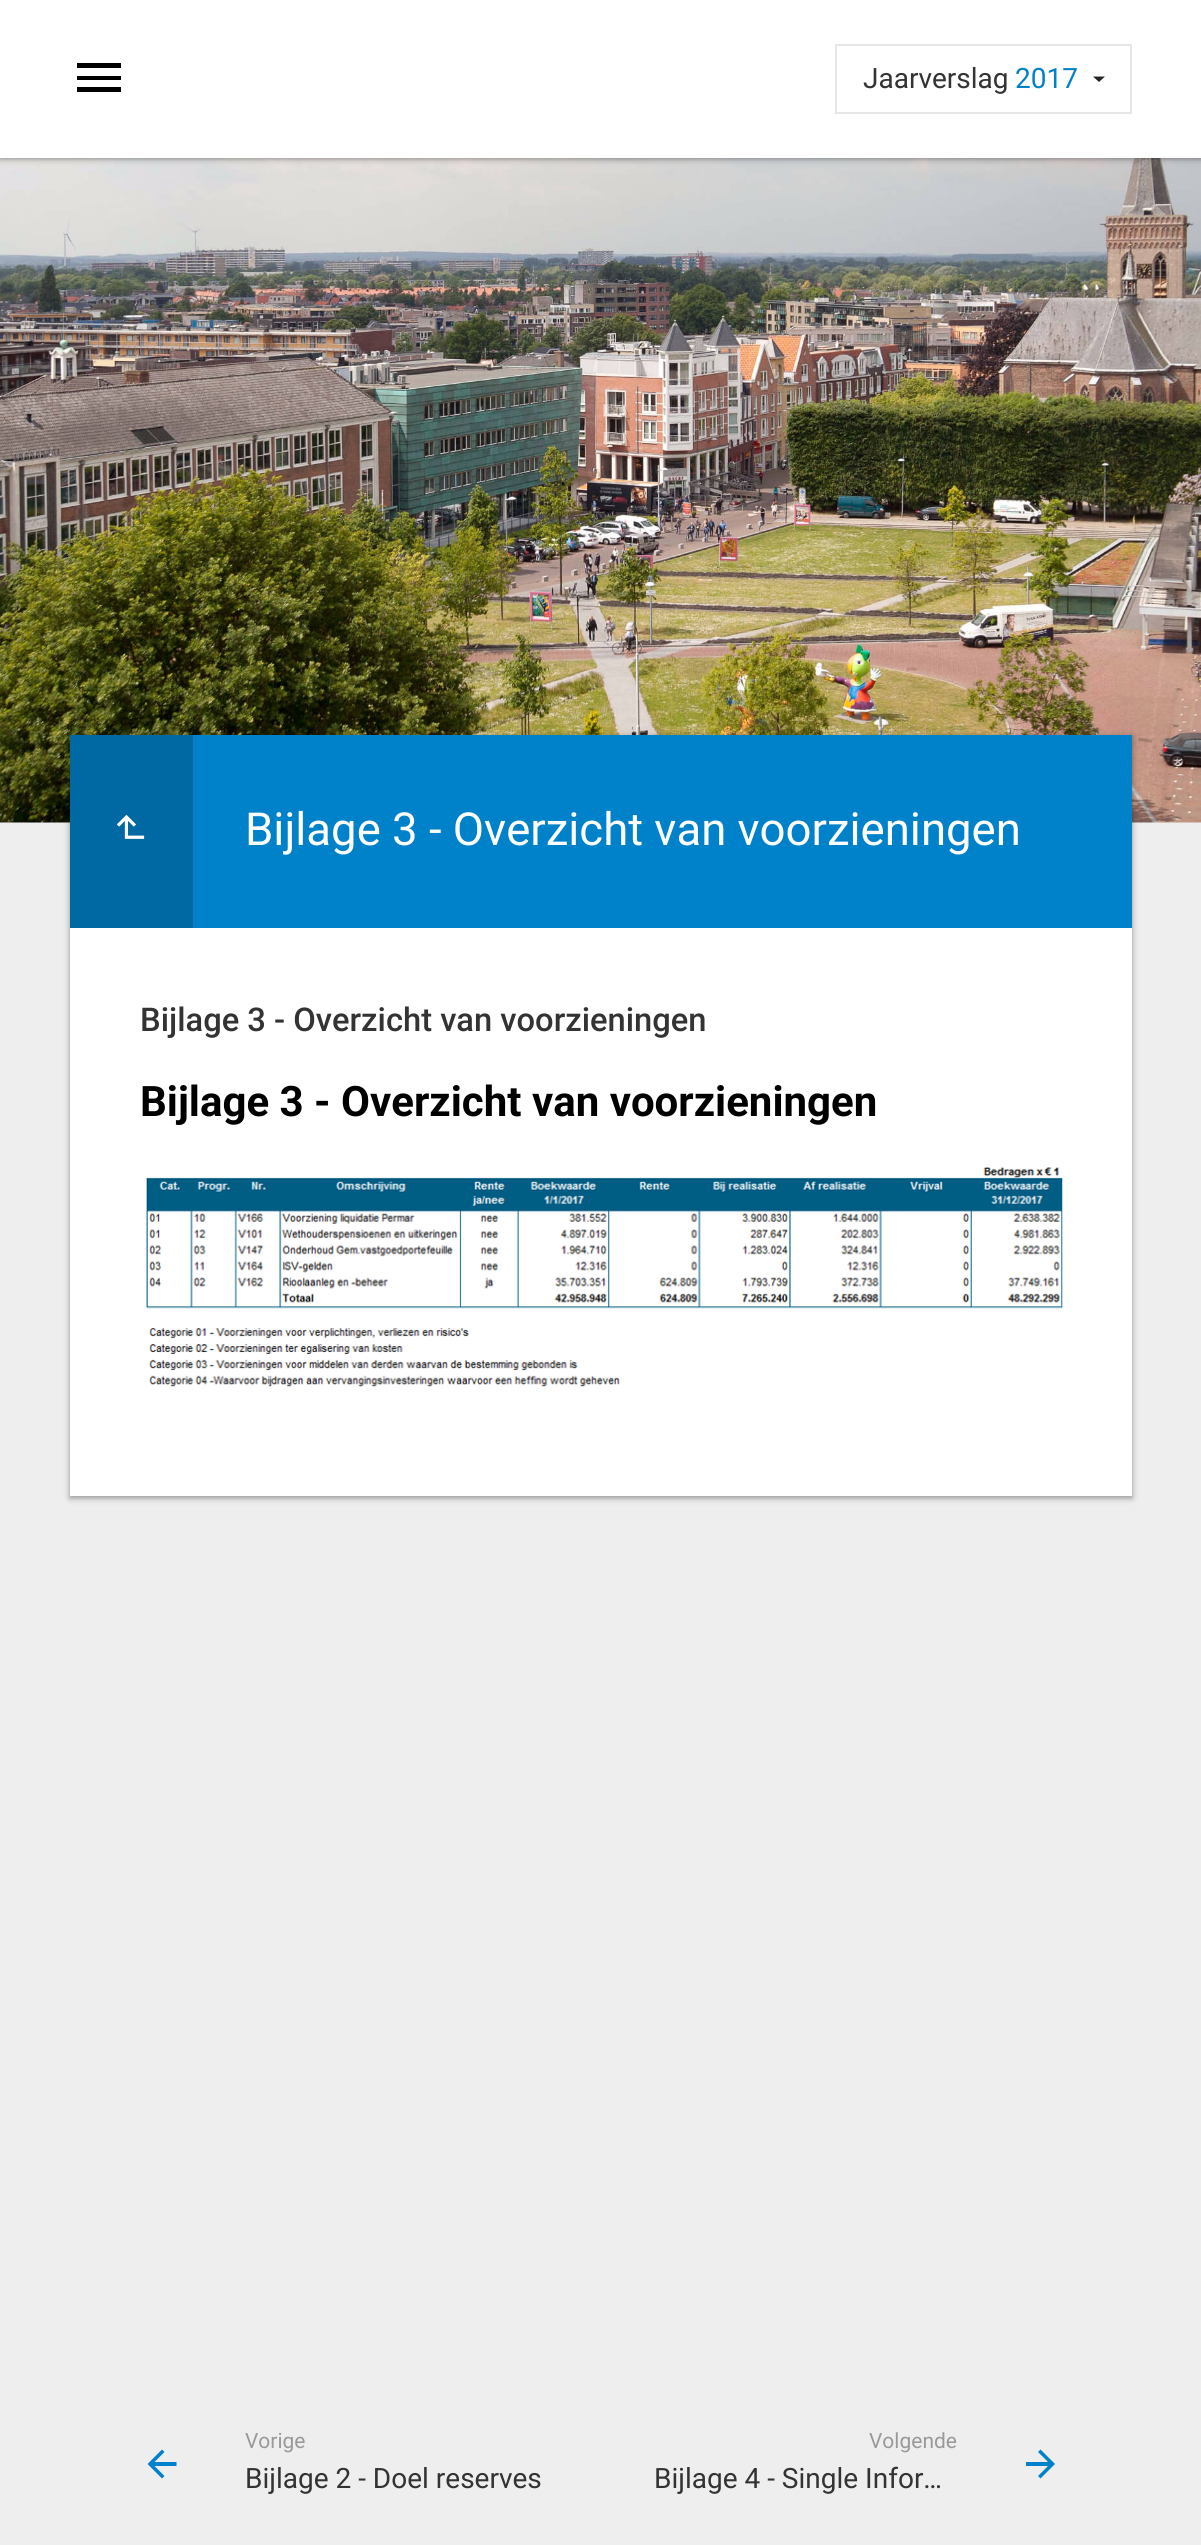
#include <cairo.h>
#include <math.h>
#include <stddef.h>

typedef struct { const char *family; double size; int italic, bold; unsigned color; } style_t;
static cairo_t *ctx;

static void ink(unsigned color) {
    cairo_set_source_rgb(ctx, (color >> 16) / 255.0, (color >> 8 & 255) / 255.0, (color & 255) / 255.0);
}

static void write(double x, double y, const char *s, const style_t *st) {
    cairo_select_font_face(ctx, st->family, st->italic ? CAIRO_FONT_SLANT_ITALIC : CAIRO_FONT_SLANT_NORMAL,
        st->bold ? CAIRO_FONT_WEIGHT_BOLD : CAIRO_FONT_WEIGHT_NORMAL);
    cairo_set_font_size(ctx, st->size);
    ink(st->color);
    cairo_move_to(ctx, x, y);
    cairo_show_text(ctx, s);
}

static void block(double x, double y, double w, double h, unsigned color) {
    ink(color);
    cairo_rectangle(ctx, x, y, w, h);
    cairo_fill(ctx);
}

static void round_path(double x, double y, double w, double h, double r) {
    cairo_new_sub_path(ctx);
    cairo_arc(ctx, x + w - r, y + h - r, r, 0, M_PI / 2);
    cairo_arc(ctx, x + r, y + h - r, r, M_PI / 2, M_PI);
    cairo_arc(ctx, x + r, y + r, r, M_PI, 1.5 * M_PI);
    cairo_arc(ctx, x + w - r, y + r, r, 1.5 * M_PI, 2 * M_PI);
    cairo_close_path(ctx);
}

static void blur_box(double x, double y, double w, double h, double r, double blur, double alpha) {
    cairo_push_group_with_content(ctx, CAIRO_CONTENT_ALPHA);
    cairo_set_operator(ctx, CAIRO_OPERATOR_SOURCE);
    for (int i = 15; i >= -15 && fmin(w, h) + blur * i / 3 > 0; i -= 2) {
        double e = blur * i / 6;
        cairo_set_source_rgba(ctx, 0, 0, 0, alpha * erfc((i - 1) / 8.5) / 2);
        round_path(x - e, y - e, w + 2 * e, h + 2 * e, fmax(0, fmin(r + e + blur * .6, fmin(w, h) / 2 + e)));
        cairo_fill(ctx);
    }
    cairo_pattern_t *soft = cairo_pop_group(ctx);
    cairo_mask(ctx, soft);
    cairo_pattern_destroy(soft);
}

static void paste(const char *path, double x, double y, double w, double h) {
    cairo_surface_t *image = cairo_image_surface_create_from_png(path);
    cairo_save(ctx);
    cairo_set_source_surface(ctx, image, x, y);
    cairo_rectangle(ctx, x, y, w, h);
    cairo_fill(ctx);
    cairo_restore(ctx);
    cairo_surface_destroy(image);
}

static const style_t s1 = {"Roboto", 28, 0, 0, 0x333333};
static const style_t s2 = {"Roboto", 28, 0, 0, 0x0082ca};
static const style_t s3 = {"Roboto", 45.5, 0, 0, 0xffffff};
static const style_t s4 = {"Roboto Medium", 32.7, 0, 0, 0x333333};
static const style_t s5 = {"Roboto", 42, 0, 1, 0x000000};
static const style_t s6 = {"Roboto", 21, 0, 0, 0x999999};

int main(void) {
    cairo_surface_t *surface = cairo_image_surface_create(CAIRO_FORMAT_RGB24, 1201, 2545);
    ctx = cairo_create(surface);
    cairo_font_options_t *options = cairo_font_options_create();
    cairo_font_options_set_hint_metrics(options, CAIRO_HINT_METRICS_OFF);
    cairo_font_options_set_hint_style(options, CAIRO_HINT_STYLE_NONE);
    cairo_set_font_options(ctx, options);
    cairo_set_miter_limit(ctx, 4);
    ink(0xeeeeee);
    cairo_paint(ctx);
    paste("pic1.png", 0, 158, 1201, 665);
    ink(0x000000);
    blur_box(0, 2, 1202, 157, 0, 2.5, 0.26);
    blur_box(0, 2, 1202, 157, 0, 4.5, 0.16);
    block(0, 0, 1201, 158, 0xffffff);
    ink(0x000000);
    cairo_new_path(ctx);
    cairo_move_to(ctx, 77, 63);
    cairo_line_to(ctx, 121, 63);
    cairo_line_to(ctx, 121, 68);
    cairo_line_to(ctx, 77, 68);
    cairo_close_path(ctx);
    cairo_move_to(ctx, 77, 80);
    cairo_line_to(ctx, 77, 76);
    cairo_line_to(ctx, 121, 76);
    cairo_line_to(ctx, 121, 80);
    cairo_close_path(ctx);
    cairo_move_to(ctx, 77, 92);
    cairo_line_to(ctx, 77, 87);
    cairo_line_to(ctx, 121, 87);
    cairo_line_to(ctx, 121, 92);
    cairo_close_path(ctx);
    cairo_fill(ctx);
    cairo_rectangle(ctx, 836, 45, 295, 68);
    ink(0xe6e6e6);
    cairo_stroke(ctx);
    write(863, 88, "Jaarverslag", &s1);
    write(1015, 88, "2017", &s2);
    ink(0x242424);
    cairo_new_path(ctx);
    cairo_move_to(ctx, 1093, 76.5);
    cairo_line_to(ctx, 1105, 76.5);
    cairo_line_to(ctx, 1099, 82);
    cairo_close_path(ctx);
    cairo_fill(ctx);
    ink(0x000000);
    blur_box(70, 737, 1062, 761, 0, 2.5, 0.26);
    blur_box(70, 737, 1062, 761, 0, 4.5, 0.16);
    block(70, 928, 1062, 568, 0xffffff);
    block(193, 735, 939, 193, 0x0082ca);
    block(70, 735, 123, 193, 0x0068a2);
    paste("pic2.png", 116, 814, 29, 25);
    write(245, 845, "Bijlage 3 - Overzicht van voorzieningen", &s3);
    write(140, 1031, "Bijlage 3 - Overzicht van voorzieningen", &s4);
    write(140, 1116, "Bijlage 3 - Overzicht van voorzieningen", &s5);
    paste("pic3.png", 146, 1167, 917, 220);
    write(245, 2448, "Vorige", &s6);
    ink(0x0082ca);
    cairo_new_path(ctx);
    cairo_move_to(ctx, 176.5, 2462);
    cairo_line_to(ctx, 176.5, 2466);
    cairo_line_to(ctx, 154.5, 2466);
    cairo_line_to(ctx, 164.5, 2476);
    cairo_line_to(ctx, 162, 2478.5);
    cairo_line_to(ctx, 147.5, 2464);
    cairo_line_to(ctx, 162, 2449.5);
    cairo_line_to(ctx, 164.5, 2452);
    cairo_line_to(ctx, 154.5, 2462);
    cairo_close_path(ctx);
    cairo_fill(ctx);
    write(245, 2488, "Bijlage 2 - Doel reserves", &s1);
    write(869, 2448, "Volgende", &s6);
    write(654, 2488, "Bijlage 4 - Single Infor…", &s1);
    ink(0x0082ca);
    cairo_new_path(ctx);
    cairo_move_to(ctx, 1040.5, 2449.5);
    cairo_line_to(ctx, 1055, 2464);
    cairo_line_to(ctx, 1040.5, 2478.5);
    cairo_line_to(ctx, 1038, 2476);
    cairo_line_to(ctx, 1048, 2466);
    cairo_line_to(ctx, 1026, 2466);
    cairo_line_to(ctx, 1026, 2462);
    cairo_line_to(ctx, 1048, 2462);
    cairo_line_to(ctx, 1038, 2452);
    cairo_close_path(ctx);
    cairo_fill(ctx);
    cairo_surface_write_to_png(surface, "screenshot.png");
    cairo_font_options_destroy(options);
    cairo_destroy(ctx);
    cairo_surface_destroy(surface);
    return 0;
}
